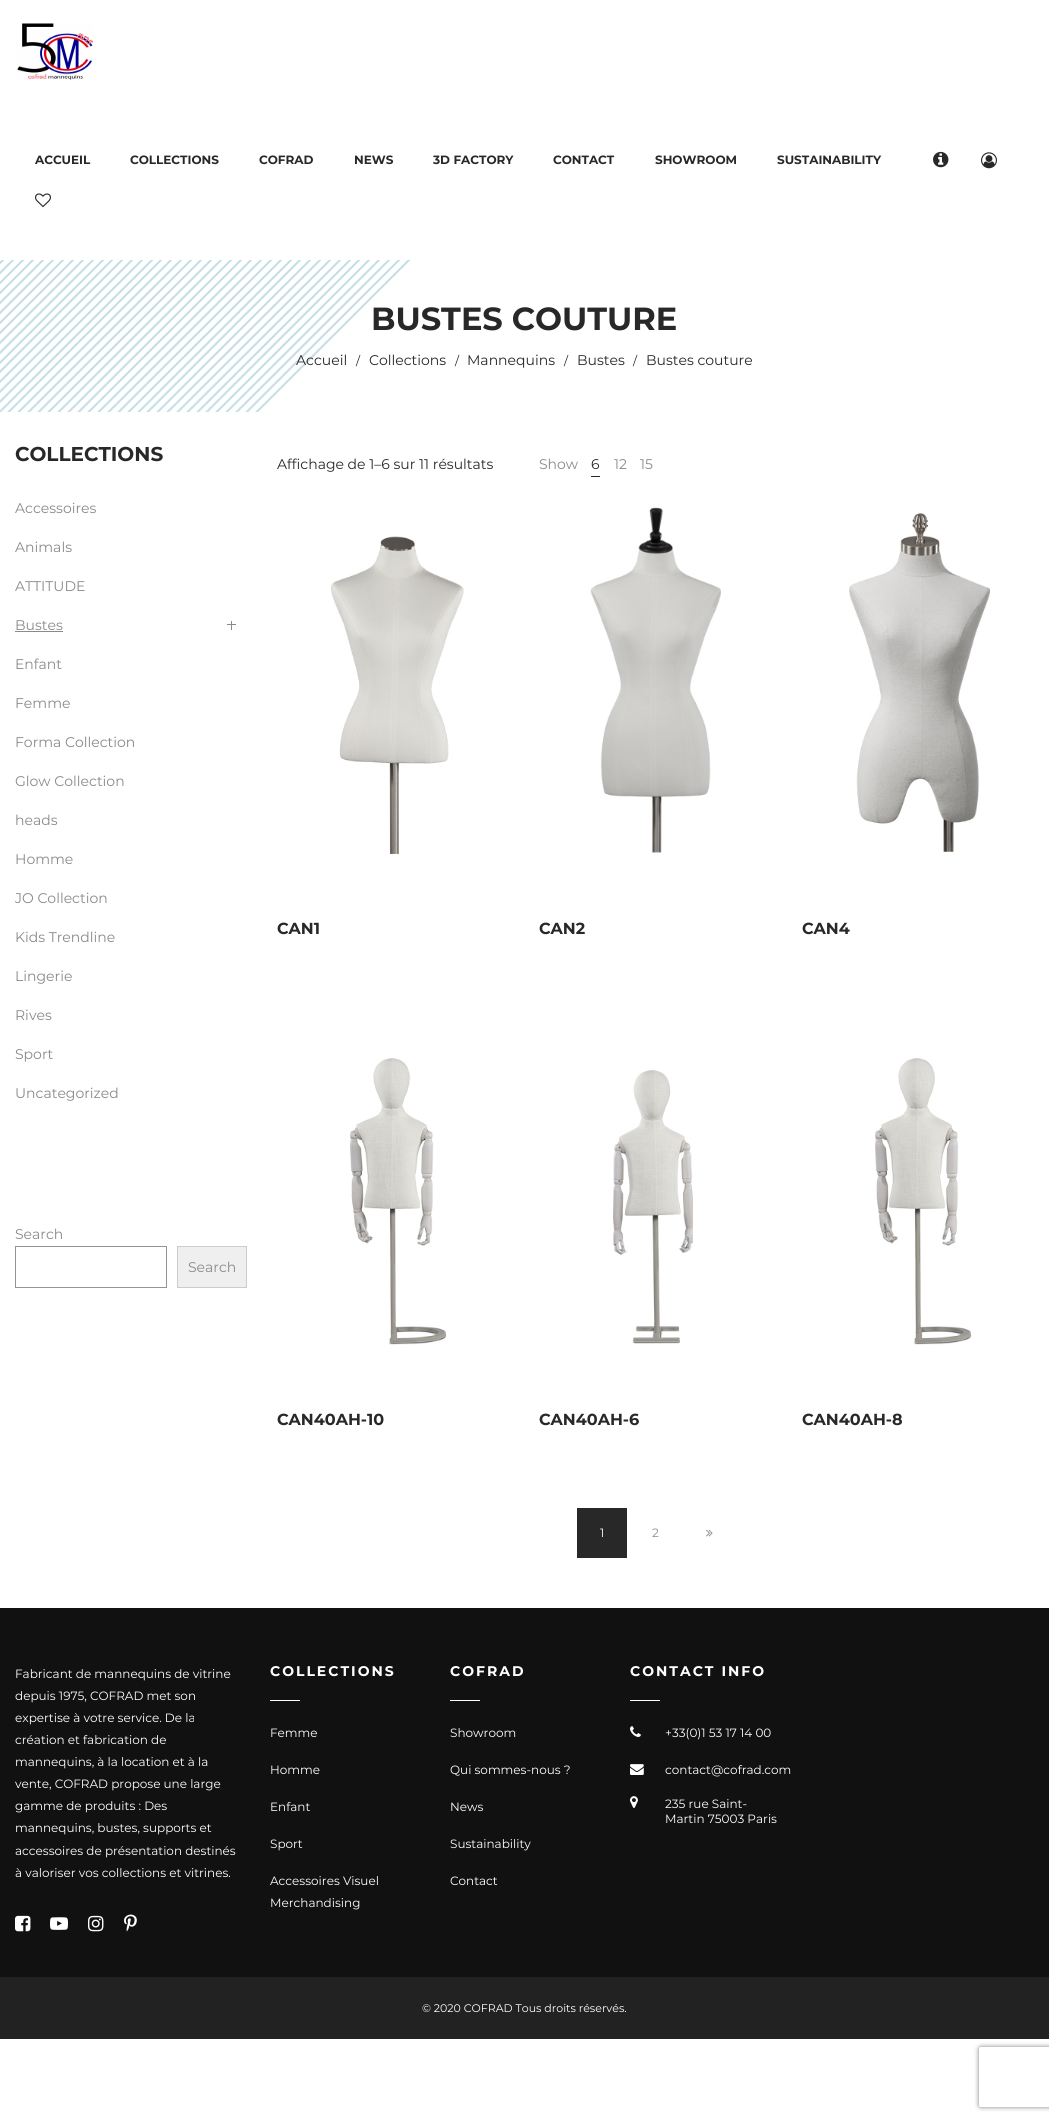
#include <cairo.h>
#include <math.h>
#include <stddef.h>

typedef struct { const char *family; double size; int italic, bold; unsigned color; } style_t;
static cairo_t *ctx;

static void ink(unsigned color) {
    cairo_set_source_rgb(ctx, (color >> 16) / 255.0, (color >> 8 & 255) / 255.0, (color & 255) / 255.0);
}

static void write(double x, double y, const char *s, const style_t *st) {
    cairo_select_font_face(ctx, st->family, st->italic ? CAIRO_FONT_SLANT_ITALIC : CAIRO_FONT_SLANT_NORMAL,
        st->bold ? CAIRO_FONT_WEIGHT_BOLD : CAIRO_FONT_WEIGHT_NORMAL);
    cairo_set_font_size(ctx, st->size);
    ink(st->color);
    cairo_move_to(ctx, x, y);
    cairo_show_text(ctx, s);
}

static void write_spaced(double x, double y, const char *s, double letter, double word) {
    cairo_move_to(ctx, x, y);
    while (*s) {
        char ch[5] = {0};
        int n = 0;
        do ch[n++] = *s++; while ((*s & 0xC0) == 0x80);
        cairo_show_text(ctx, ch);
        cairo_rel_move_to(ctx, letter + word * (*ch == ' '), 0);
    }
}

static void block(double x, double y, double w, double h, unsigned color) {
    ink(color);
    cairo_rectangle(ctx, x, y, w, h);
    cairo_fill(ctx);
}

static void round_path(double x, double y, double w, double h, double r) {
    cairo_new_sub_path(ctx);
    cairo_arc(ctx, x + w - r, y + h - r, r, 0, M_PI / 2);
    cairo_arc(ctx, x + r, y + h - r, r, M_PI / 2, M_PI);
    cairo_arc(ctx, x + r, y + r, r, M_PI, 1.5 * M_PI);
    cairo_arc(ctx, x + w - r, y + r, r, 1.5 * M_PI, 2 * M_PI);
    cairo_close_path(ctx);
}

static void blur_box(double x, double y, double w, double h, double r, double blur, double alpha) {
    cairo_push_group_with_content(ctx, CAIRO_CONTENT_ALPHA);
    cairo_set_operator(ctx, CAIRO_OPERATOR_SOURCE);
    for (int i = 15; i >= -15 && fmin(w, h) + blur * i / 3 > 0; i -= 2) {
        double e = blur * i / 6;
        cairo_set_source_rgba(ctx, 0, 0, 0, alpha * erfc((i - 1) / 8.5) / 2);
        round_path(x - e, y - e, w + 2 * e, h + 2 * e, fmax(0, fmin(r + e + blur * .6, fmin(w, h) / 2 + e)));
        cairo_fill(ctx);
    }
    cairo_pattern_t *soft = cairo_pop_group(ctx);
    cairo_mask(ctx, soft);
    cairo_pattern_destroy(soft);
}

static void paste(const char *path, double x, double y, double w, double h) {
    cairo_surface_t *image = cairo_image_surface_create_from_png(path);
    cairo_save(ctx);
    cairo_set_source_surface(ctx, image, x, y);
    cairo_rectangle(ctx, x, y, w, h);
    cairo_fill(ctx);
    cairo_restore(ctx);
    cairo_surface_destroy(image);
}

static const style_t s1 = {"Montserrat Thin", 12, 0, 0, 0x282828};
static const style_t s2 = {"Montserrat Thin", 32, 0, 0, 0x282828};
static const style_t s3 = {"Montserrat", 14, 0, 0, 0x282828};
static const style_t s4 = {"Montserrat", 12, 0, 0, 0x282828};
static const style_t s5 = {"Montserrat Thin", 20, 0, 0, 0x282828};
static const style_t s6 = {"Montserrat", 14, 0, 0, 0x8a8a8a};
static const style_t s7 = {"Montserrat Thin", 16, 0, 0, 0x282828};
static const style_t s8 = {"Montserrat", 12, 0, 0, 0xffffff};
static const style_t s9 = {"Montserrat", 12, 0, 0, 0x8a8a8a};
static const style_t s10 = {"Montserrat", 11, 0, 0, 0xffffff};

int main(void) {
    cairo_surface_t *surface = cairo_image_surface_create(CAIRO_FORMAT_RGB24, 1049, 2121);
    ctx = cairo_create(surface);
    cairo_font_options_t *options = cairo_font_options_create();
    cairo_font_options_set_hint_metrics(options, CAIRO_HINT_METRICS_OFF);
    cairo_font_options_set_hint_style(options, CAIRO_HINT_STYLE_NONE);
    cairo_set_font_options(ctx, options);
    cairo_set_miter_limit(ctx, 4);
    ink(0xffffff);
    cairo_paint(ctx);
    paste("pic1.png", 17, 23, 76, 58);
    write(35, 164, "ACCUEIL", &s1);
    write(130, 164, "COLLECTIONS", &s1);
    write(259, 164, "COFRAD", &s1);
    write(354, 164, "NEWS", &s1);
    write(433, 164, "3D FACTORY", &s1);
    write(553, 164, "CONTACT", &s1);
    write(655, 164, "SHOWROOM", &s1);
    write(777, 164, "SUSTAINABILITY", &s1);
    paste("pic2.png", 933, 151, 16, 17);
    paste("pic3.png", 981, 152, 16, 17);
    paste("pic4.png", 35, 193, 16, 15);
    paste("pic5.png", 0, 260, 411, 152);
    write(371, 330, "BUSTES COUTURE", &s2);
    write(296, 365, "Accueil", &s3);
    write(356, 365, "/", &s4);
    write(369, 365, "Collections", &s3);
    write(455, 365, "/", &s4);
    write(467, 365, "Mannequins", &s3);
    write(564, 365, "/", &s4);
    write(577, 365, "Bustes", &s3);
    write(633, 365, "/", &s4);
    write(646, 365, "Bustes couture", &s3);
    write(15, 461, "COLLECTIONS", &s5);
    write(15, 513, "Accessoires", &s6);
    write(15, 552, "Animals", &s6);
    write(15, 591, "ATTITUDE", &s6);
    write(15, 630, "Bustes", &s6);
    block(15, 631, 48, 1, 0x8a8a8a);
    block(227, 624, 9, 1, 0x8a8a8a);
    block(231, 621, 1, 9, 0x8a8a8a);
    write(15, 669, "Enfant", &s6);
    write(15, 708, "Femme", &s6);
    write(15, 747, "Forma Collection", &s6);
    write(15, 786, "Glow Collection", &s6);
    write(15, 825, "heads", &s6);
    write(15, 864, "Homme", &s6);
    write(15, 903, "JO Collection", &s6);
    write(15, 942, "Kids Trendline", &s6);
    write(15, 981, "Lingerie", &s6);
    write(15, 1020, "Rives", &s6);
    write(15, 1059, "Sport", &s6);
    write(15, 1098, "Uncategorized", &s6);
    write(15, 1239, "Search", &s6);
    cairo_rectangle(ctx, 15.5, 1246.5, 151, 41);
    ink(0x949494);
    cairo_set_line_width(ctx, 1);
    cairo_stroke(ctx);
    ink(0xefefef);
    cairo_rectangle(ctx, 177.5, 1246.5, 69, 41);
    cairo_fill_preserve(ctx);
    ink(0xcccccc);
    cairo_stroke(ctx);
    write(188, 1272, "Search", &s6);
    write(277, 469, "Affichage de 1–6 sur 11 résultats", &s3);
    write(539, 469, "Show", &s6);
    block(591, 476, 9, 1, 0x282828);
    write(591, 469, "6", &s3);
    write(614, 469, "12", &s6);
    write(640, 469, "15", &s6);
    paste("pic6.png", 331, 536, 133, 318);
    write(277, 934, "CAN1", &s7);
    paste("pic7.png", 590, 507, 131, 346);
    write(539, 934, "CAN2", &s7);
    paste("pic8.png", 849, 513, 141, 339);
    write(802, 934, "CAN4", &s7);
    paste("pic9.png", 350, 1058, 96, 287);
    write(277, 1425, "CAN40AH-10", &s7);
    paste("pic10.png", 613, 1070, 80, 274);
    write(539, 1425, "CAN40AH-6", &s7);
    paste("pic9.png", 875, 1058, 96, 287);
    write(802, 1425, "CAN40AH-8", &s7);
    block(577, 1508, 50, 50, 0x282828);
    write(600, 1537, "1", &s8);
    write(652, 1537, "2", &s9);
    paste("pic11.png", 706, 1529, 7, 8);
    block(0, 1608, 1049, 369, 0x111111);
    write(15, 1678, "Fabricant de mannequins de vitrine", &s8);
    write(15, 1700, "depuis 1975, COFRAD met son", &s8);
    write(15, 1722, "expertise à votre service. De la", &s8);
    write(15, 1744, "création et fabrication de", &s8);
    write(15, 1766, "mannequins, à la location et à la", &s8);
    write(15, 1788, "vente, COFRAD propose une large", &s8);
    write(15, 1810, "gamme de produits : Des", &s8);
    write(15, 1832, "mannequins, bustes, supports et", &s8);
    write(15, 1855, "accessoires de présentation destinés", &s8);
    write(15, 1877, "à valoriser vos collections et vitrines.", &s8);
    paste("pic12.png", 15, 1915, 16, 17);
    paste("pic13.png", 50, 1917, 18, 13);
    paste("pic14.png", 88, 1915, 16, 17);
    paste("pic15.png", 124, 1914, 13, 18);
    cairo_select_font_face(ctx, "Montserrat Thin", CAIRO_FONT_SLANT_NORMAL, CAIRO_FONT_WEIGHT_NORMAL);
    cairo_set_font_size(ctx, 14);
    write_spaced(270, 1676, "COLLECTIONS", 2, 0);
    block(270, 1700, 30, 1, 0xffffff);
    write(270, 1737, "Femme", &s8);
    write(270, 1774, "Homme", &s8);
    write(270, 1811, "Enfant", &s8);
    write(270, 1848, "Sport", &s8);
    write(270, 1885, "Accessoires Visuel", &s8);
    write(270, 1907, "Merchandising", &s8);
    cairo_select_font_face(ctx, "Montserrat Thin", CAIRO_FONT_SLANT_NORMAL, CAIRO_FONT_WEIGHT_NORMAL);
    cairo_set_font_size(ctx, 14);
    write_spaced(450, 1676, "COFRAD", 2, 0);
    block(450, 1700, 30, 1, 0xffffff);
    write(450, 1737, "Showroom", &s8);
    write(450, 1774, "Qui sommes-nous ?", &s8);
    write(450, 1811, "News", &s8);
    write(450, 1848, "Sustainability", &s8);
    write(450, 1885, "Contact", &s8);
    cairo_select_font_face(ctx, "Montserrat Thin", CAIRO_FONT_SLANT_NORMAL, CAIRO_FONT_WEIGHT_NORMAL);
    cairo_set_font_size(ctx, 14);
    write_spaced(630, 1676, "CONTACT INFO", 2, 0);
    block(630, 1700, 30, 1, 0xffffff);
    paste("pic16.png", 630, 1726, 11, 11);
    write(665, 1737, "+33(0)1 53 17 14 00", &s8);
    paste("pic17.png", 630, 1764, 14, 11);
    write(665, 1774, "contact@cofrad.com", &s8);
    paste("pic18.png", 630, 1796, 8, 12);
    write(665, 1808, "235 rue Saint-", &s8);
    write(665, 1823, "Martin 75003 Paris", &s8);
    block(0, 1977, 1049, 62, 0x222222);
    write(422, 2012, "© 2020 COFRAD Tous droits réservés.", &s10);
    cairo_save(ctx);
    cairo_set_fill_rule(ctx, CAIRO_FILL_RULE_EVEN_ODD);
    cairo_new_path(ctx);
    cairo_move_to(ctx, 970, 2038);
    cairo_line_to(ctx, 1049, 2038);
    cairo_line_to(ctx, 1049, 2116);
    cairo_line_to(ctx, 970, 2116);
    cairo_close_path(ctx);
    cairo_move_to(ctx, 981, 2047);
    cairo_line_to(ctx, 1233, 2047);
    cairo_curve_to(ctx, 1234, 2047, 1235, 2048, 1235, 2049);
    cairo_line_to(ctx, 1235, 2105);
    cairo_curve_to(ctx, 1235, 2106, 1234, 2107, 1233, 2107);
    cairo_line_to(ctx, 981, 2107);
    cairo_curve_to(ctx, 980, 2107, 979, 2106, 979, 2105);
    cairo_line_to(ctx, 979, 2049);
    cairo_curve_to(ctx, 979, 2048, 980, 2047, 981, 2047);
    cairo_close_path(ctx);
    cairo_clip(ctx);
    ink(0x808080);
    blur_box(979, 2047, 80, 60, 2, 2.5, 1);
    cairo_restore(ctx);
    cairo_surface_write_to_png(surface, "screenshot.png");
    cairo_font_options_destroy(options);
    cairo_destroy(ctx);
    cairo_surface_destroy(surface);
    return 0;
}
